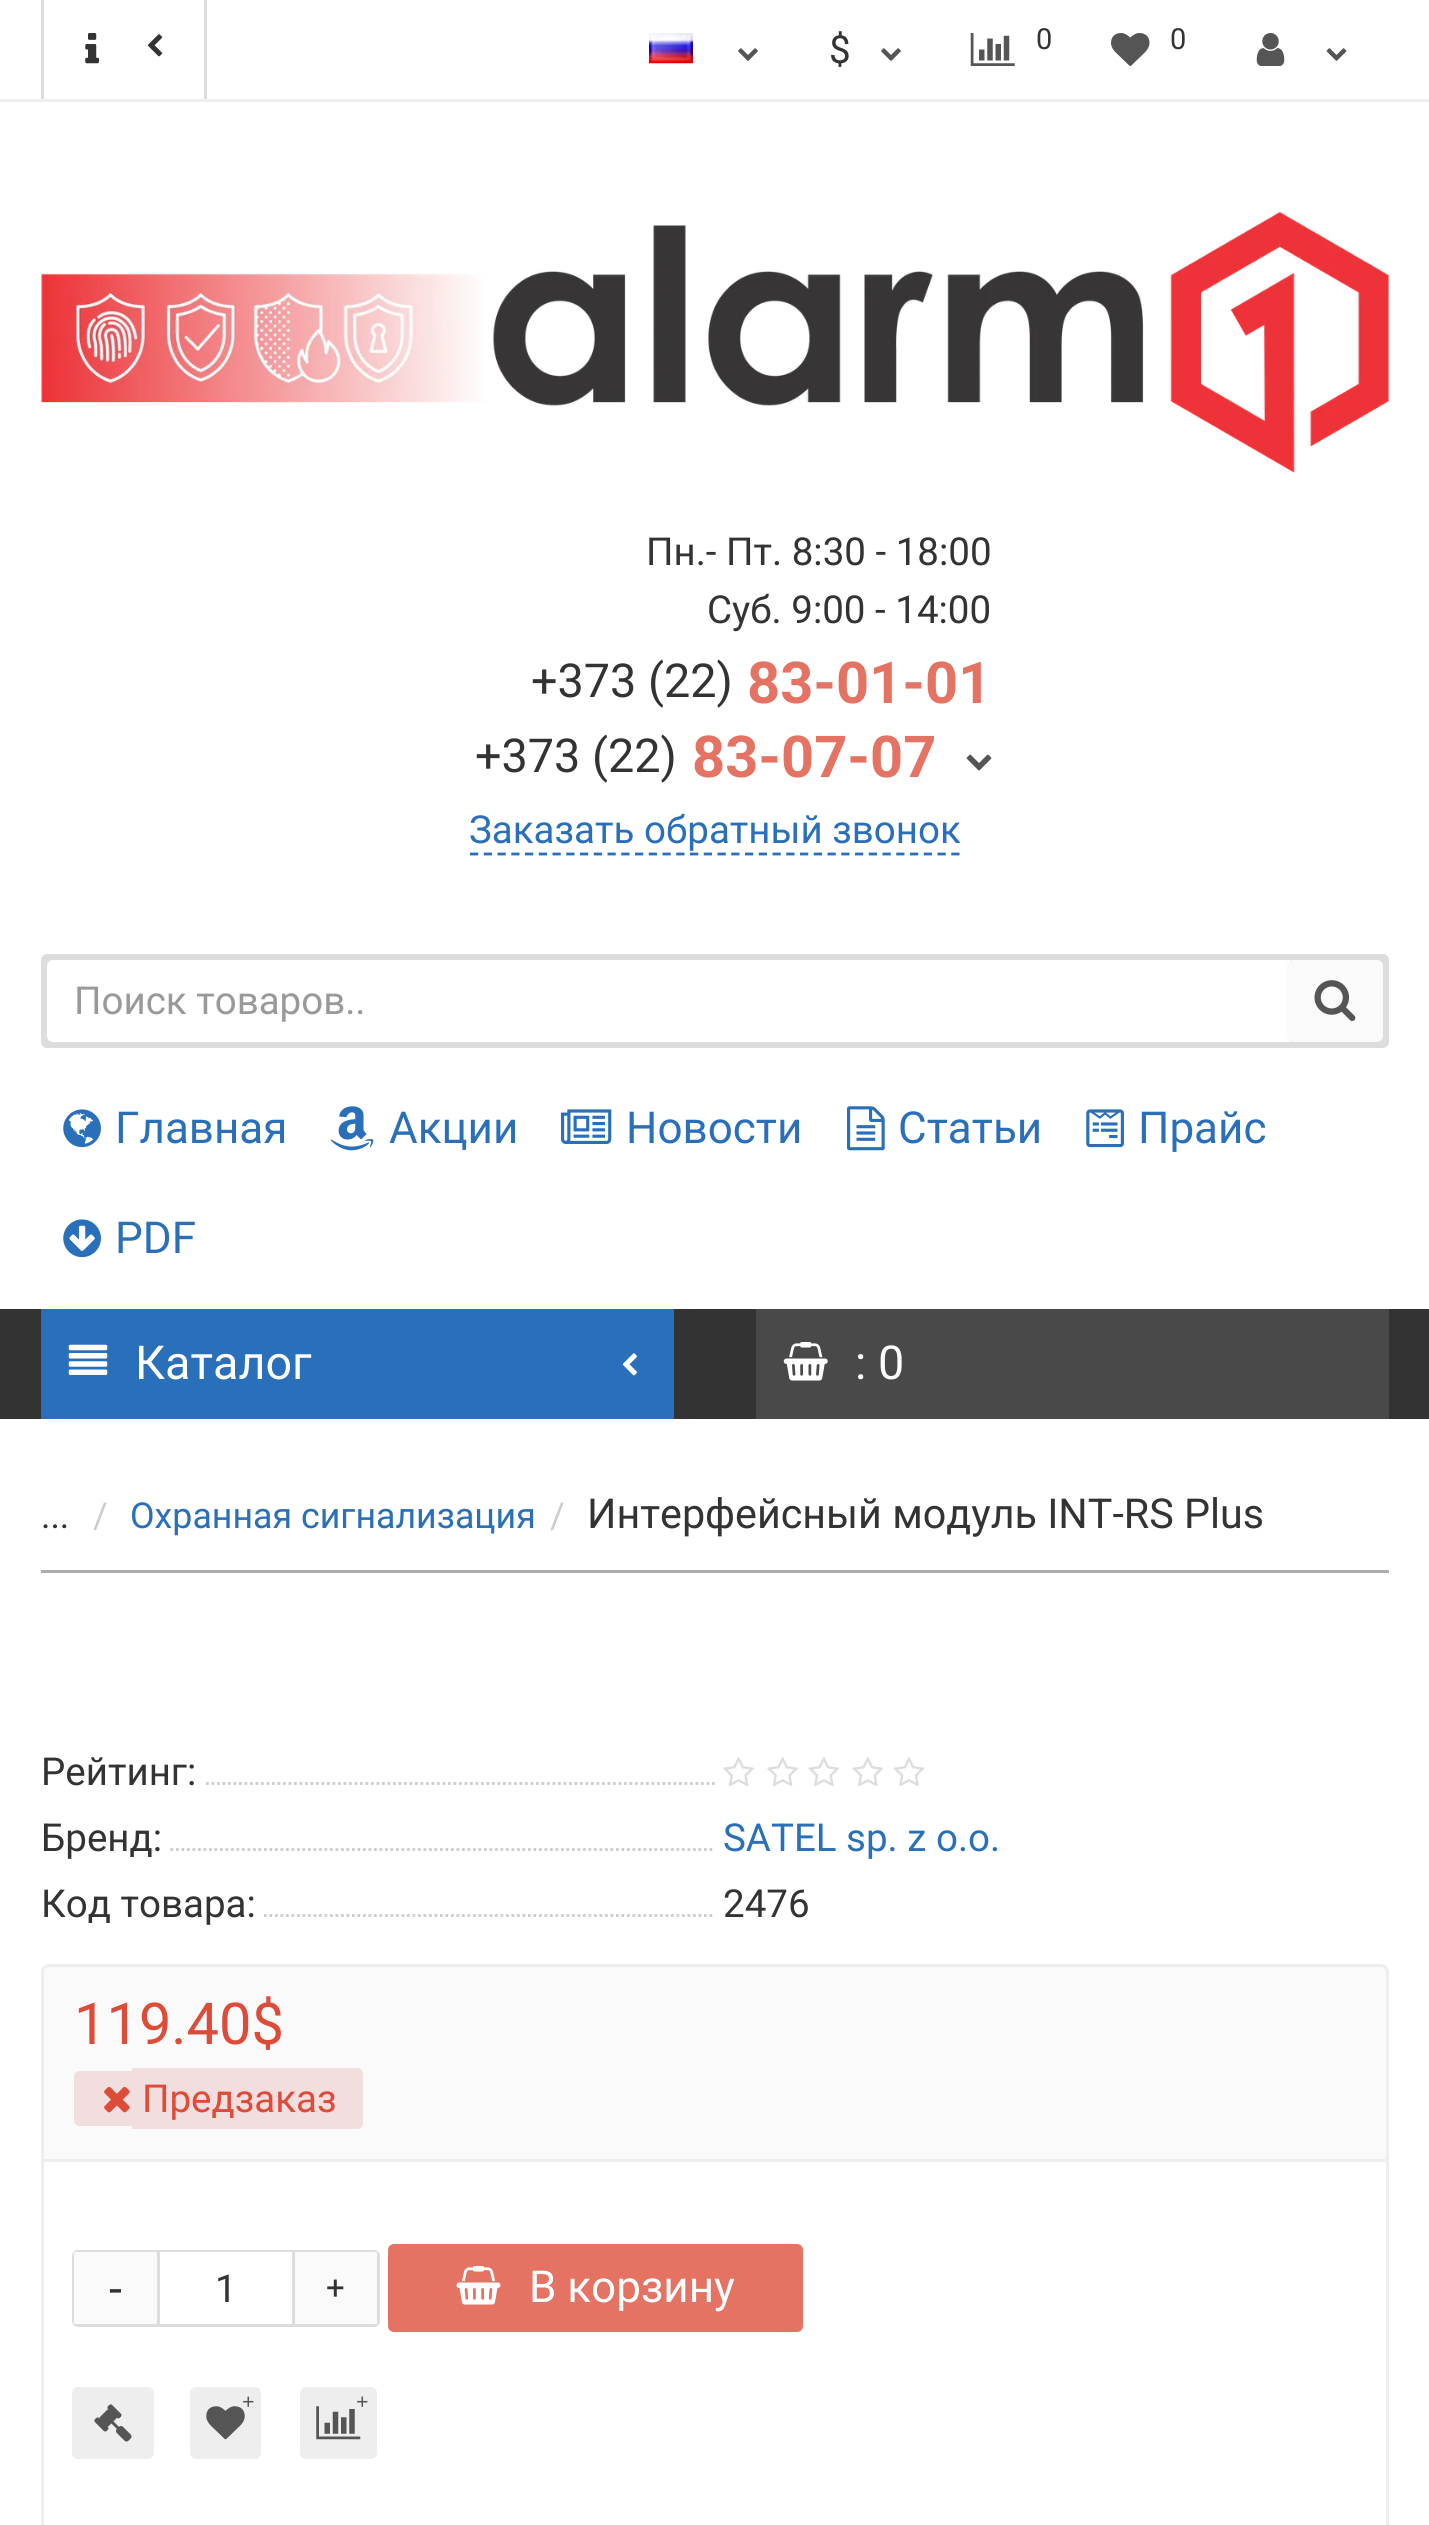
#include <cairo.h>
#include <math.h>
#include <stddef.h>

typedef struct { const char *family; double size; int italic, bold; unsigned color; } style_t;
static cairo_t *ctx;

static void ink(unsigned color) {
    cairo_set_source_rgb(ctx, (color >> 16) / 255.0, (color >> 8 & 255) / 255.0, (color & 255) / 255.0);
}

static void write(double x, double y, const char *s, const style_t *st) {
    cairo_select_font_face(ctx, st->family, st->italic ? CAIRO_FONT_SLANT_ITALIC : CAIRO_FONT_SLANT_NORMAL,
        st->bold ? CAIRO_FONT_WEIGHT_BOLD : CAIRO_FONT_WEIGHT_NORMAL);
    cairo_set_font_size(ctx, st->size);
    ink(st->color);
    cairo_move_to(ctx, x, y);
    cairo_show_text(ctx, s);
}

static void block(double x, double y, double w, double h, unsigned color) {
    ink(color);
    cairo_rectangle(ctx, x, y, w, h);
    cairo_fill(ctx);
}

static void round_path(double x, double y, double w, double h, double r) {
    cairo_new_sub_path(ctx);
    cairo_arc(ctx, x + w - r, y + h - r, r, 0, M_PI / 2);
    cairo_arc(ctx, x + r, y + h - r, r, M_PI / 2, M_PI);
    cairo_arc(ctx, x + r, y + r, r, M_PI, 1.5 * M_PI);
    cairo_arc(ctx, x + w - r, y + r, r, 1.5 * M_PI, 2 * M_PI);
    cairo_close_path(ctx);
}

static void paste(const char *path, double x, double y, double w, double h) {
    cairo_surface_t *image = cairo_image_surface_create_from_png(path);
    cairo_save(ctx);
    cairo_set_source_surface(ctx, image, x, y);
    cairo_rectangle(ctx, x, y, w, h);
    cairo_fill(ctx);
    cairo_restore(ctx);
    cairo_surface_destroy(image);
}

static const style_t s1 = {"Roboto", 38.5, 0, 0, 0x333333};
static const style_t s2 = {"Roboto", 29, 0, 0, 0x333333};
static const style_t s3 = {"Roboto", 46.75, 0, 0, 0x333333};
static const style_t s4 = {"Roboto", 57.75, 0, 1, 0xe47364};
static const style_t s5 = {"Roboto", 38.5, 0, 0, 0x2a6fba};
static const style_t s6 = {"Roboto", 38.5, 0, 0, 0x999999};
static const style_t s7 = {"Roboto", 44, 0, 0, 0x2a6fba};
static const style_t s8 = {"Roboto", 46.75, 0, 0, 0xffffff};
static const style_t s9 = {"Roboto", 35.75, 0, 0, 0x333333};
static const style_t s10 = {"Roboto", 35.75, 0, 0, 0xcccccc};
static const style_t s11 = {"Roboto", 35.75, 0, 0, 0x2a6fba};
static const style_t s12 = {"Roboto", 41.25, 0, 0, 0x333333};
static const style_t s13 = {"Roboto", 57.75, 0, 0, 0xdd4b39};
static const style_t s14 = {"Roboto", 38.5, 0, 0, 0xdd4b39};
static const style_t s15 = {"Roboto", 33, 0, 0, 0x333333};
static const style_t s16 = {"Roboto", 44, 0, 0, 0xffffff};
static const style_t s17 = {"Liberation Serif", 22, 0, 1, 0x555555};

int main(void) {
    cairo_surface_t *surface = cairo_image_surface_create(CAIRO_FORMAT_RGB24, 1429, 2525);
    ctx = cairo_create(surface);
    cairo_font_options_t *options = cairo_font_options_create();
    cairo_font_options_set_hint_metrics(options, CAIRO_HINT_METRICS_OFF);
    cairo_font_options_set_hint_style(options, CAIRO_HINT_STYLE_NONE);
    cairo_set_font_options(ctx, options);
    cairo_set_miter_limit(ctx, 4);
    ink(0xffffff);
    cairo_paint(ctx);
    block(0, 99, 1429, 3, 0xeeeeee);
    block(204, 0, 3, 99, 0xdddddd);
    block(41, 0, 3, 99, 0xdddddd);
    paste("pic1.png", 85, 33, 14, 31);
    paste("pic2.png", 147, 34, 16, 23);
    paste("pic3.png", 649, 33, 44, 31);
    paste("pic4.png", 738, 48, 20, 13);
    write(829, 63, "$", &s1);
    paste("pic4.png", 881, 48, 20, 13);
    paste("pic5.png", 970, 33, 45, 33);
    write(1036, 49, "0", &s2);
    paste("pic6.png", 1111, 33, 39, 33);
    write(1170, 49, "0", &s2);
    paste("pic7.png", 1256, 33, 29, 33);
    paste("pic8.png", 1326, 48, 21, 13);
    paste("pic9.png", 41, 211, 1348, 262);
    write(646, 565, "Пн.- Пт. 8:30 - 18:00", &s1);
    write(707, 623, "Суб. 9:00 - 14:00", &s1);
    write(531, 697, "+373 (22)", &s3);
    write(747, 703, "83-01-01", &s4);
    write(475, 772, "+373 (22)", &s3);
    write(692, 777, "83-07-07", &s4);
    paste("pic10.png", 966, 754, 26, 17);
    write(469, 843, "Заказать обратный звонок", &s5);
    cairo_new_path(ctx);
    cairo_move_to(ctx, 470, 854);
    cairo_line_to(ctx, 960, 854);
    cairo_set_line_width(ctx, 2.8);
    cairo_set_dash(ctx, (double[]){8.25, 5.5}, 2, 0);
    cairo_stroke(ctx);
    ink(0xdddddd);
    round_path(44, 957, 1342, 88, 3);
    cairo_fill_preserve(ctx);
    cairo_set_line_width(ctx, 6);
    cairo_set_dash(ctx, NULL, 0, 0);
    cairo_stroke(ctx);
    ink(0xffffff);
    cairo_new_path(ctx);
    cairo_move_to(ctx, 53, 960);
    cairo_line_to(ctx, 1290, 960);
    cairo_line_to(ctx, 1290, 1042);
    cairo_line_to(ctx, 53, 1042);
    cairo_curve_to(ctx, 49.5, 1042, 47, 1039.5, 47, 1036);
    cairo_line_to(ctx, 47, 966);
    cairo_curve_to(ctx, 47, 962.5, 49.5, 960, 53, 960);
    cairo_close_path(ctx);
    cairo_fill(ctx);
    write(74, 1014, "Поиск товаров..", &s6);
    ink(0xfafafa);
    round_path(1287, 960, 96, 82, 6);
    cairo_fill(ctx);
    paste("pic11.png", 1314, 980, 42, 41);
    paste("pic12.png", 63, 1109, 38, 39);
    write(115, 1143, "Главная", &s7);
    paste("pic13.png", 330, 1106, 44, 45);
    write(389, 1143, "Акции", &s7);
    paste("pic14.png", 561, 1109, 51, 35);
    write(626, 1143, "Новости", &s7);
    paste("pic15.png", 847, 1106, 38, 45);
    write(898, 1143, "Статьи", &s7);
    paste("pic16.png", 1086, 1109, 38, 39);
    write(1138, 1143, "Прайс", &s7);
    paste("pic17.png", 63, 1219, 38, 39);
    write(115, 1253, "PDF", &s7);
    block(0, 1309, 1429, 110, 0x333333);
    block(41, 1309, 633, 110, 0x2a6fba);
    paste("pic18.png", 68, 1344, 40, 31);
    write(135, 1379, "Каталог", &s8);
    paste("pic19.png", 622, 1353, 15, 23);
    block(756, 1309, 633, 110, 0x494949);
    paste("pic20.png", 783, 1342, 45, 39);
    write(855, 1379, ": 0", &s8);
    block(41, 1570, 1348, 3, 0xadadad);
    write(41, 1528, "...", &s9);
    write(93, 1528, "/", &s10);
    write(130, 1528, "Охранная сигнализация", &s11);
    write(550, 1528, "/", &s10);
    write(587, 1528, "Интерфейсный модуль INT-RS Plus", &s12);
    write(41, 1785, "Рейтинг:", &s1);
    cairo_save(ctx);
    cairo_rectangle(ctx, 41, 1738, 674, 66);
    cairo_clip(ctx);
    cairo_new_path(ctx);
    cairo_move_to(ctx, 206, 1783.5);
    cairo_line_to(ctx, 880, 1783.5);
    ink(0xcccccc);
    cairo_set_line_width(ctx, 2.8);
    cairo_set_dash(ctx, (double[]){2.75, 2.75}, 2, 0);
    cairo_stroke(ctx);
    cairo_restore(ctx);
    paste("pic21.png", 723, 1757, 31, 30);
    paste("pic21.png", 767, 1757, 31, 30);
    paste("pic22.png", 808, 1757, 31, 30);
    paste("pic22.png", 852, 1757, 31, 30);
    paste("pic23.png", 893, 1757, 32, 30);
    write(41, 1851, "Бренд:", &s1);
    cairo_save(ctx);
    cairo_rectangle(ctx, 41, 1804, 674, 66);
    cairo_clip(ctx);
    cairo_new_path(ctx);
    cairo_move_to(ctx, 170.5, 1849.5);
    cairo_line_to(ctx, 844, 1849.5);
    ink(0xcccccc);
    cairo_set_line_width(ctx, 2.8);
    cairo_set_dash(ctx, (double[]){2.75, 2.75}, 2, 0);
    cairo_stroke(ctx);
    cairo_restore(ctx);
    write(723, 1851, "SATEL sp. z o.o.", &s5);
    write(41, 1917, "Код товара:", &s1);
    cairo_save(ctx);
    cairo_rectangle(ctx, 41, 1870, 674, 66);
    cairo_clip(ctx);
    cairo_new_path(ctx);
    cairo_move_to(ctx, 264, 1915.5);
    cairo_line_to(ctx, 938, 1915.5);
    ink(0xcccccc);
    cairo_set_line_width(ctx, 2.8);
    cairo_set_dash(ctx, (double[]){2.75, 2.75}, 2, 0);
    cairo_stroke(ctx);
    cairo_restore(ctx);
    write(723, 1917, "2476", &s1);
    ink(0xfafafa);
    round_path(42.5, 1965.5, 1345, 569, 6.5);
    cairo_fill_preserve(ctx);
    ink(0xeeeeee);
    cairo_set_line_width(ctx, 3);
    cairo_stroke(ctx);
    write(74, 2044, "119.40$", &s13);
    ink(0xf2dede);
    cairo_new_path(ctx);
    cairo_move_to(ctx, 80, 2071);
    cairo_line_to(ctx, 132, 2071);
    cairo_line_to(ctx, 132, 2126);
    cairo_line_to(ctx, 80, 2126);
    cairo_curve_to(ctx, 76.5, 2126, 74, 2123.5, 74, 2120);
    cairo_line_to(ctx, 74, 2077);
    cairo_curve_to(ctx, 74, 2073.5, 76.5, 2071, 80, 2071);
    cairo_close_path(ctx);
    cairo_fill(ctx);
    cairo_new_path(ctx);
    cairo_move_to(ctx, 132, 2068);
    cairo_line_to(ctx, 357, 2068);
    cairo_curve_to(ctx, 360.5, 2068, 363, 2070.5, 363, 2074);
    cairo_line_to(ctx, 363, 2123);
    cairo_curve_to(ctx, 363, 2126.5, 360.5, 2129, 357, 2129);
    cairo_line_to(ctx, 132, 2129);
    cairo_close_path(ctx);
    cairo_fill(ctx);
    paste("pic24.png", 104, 2086, 26, 27);
    write(142, 2112, "Предзаказ", &s14);
    ink(0xffffff);
    cairo_rectangle(ctx, 42.5, 2160.5, 1345, 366);
    cairo_fill_preserve(ctx);
    ink(0xeeeeee);
    cairo_stroke(ctx);
    round_path(73.5, 2251.5, 305, 74, 4.5);
    ink(0xdddddd);
    cairo_stroke(ctx);
    block(160, 2252, 132, 1, 0xffffff);
    block(292, 2252, 3, 72, 0xdddddd);
    block(157, 2252, 3, 72, 0xdddddd);
    write(215, 2302, "1", &s1);
    block(74, 2252, 83, 72, 0xfafafa);
    write(109, 2305, "-", &s3);
    block(295, 2252, 82, 72, 0xfafafa);
    write(326, 2299, "+", &s15);
    ink(0xe47364);
    round_path(388, 2244, 415, 88, 6);
    cairo_fill(ctx);
    paste("pic25.png", 456, 2266, 45, 39);
    write(529, 2302, "В корзину", &s16);
    ink(0xeeeeee);
    round_path(75, 2390, 76, 66, 3);
    cairo_fill_preserve(ctx);
    cairo_set_line_width(ctx, 6);
    cairo_stroke(ctx);
    paste("pic26.png", 94, 2404, 38, 38);
    round_path(193, 2390, 65, 66, 3);
    cairo_fill_preserve(ctx);
    cairo_stroke(ctx);
    paste("pic27.png", 206, 2406, 39, 34);
    write(242, 2409, "+", &s17);
    ink(0xeeeeee);
    round_path(303, 2390, 71, 66, 3);
    cairo_fill_preserve(ctx);
    cairo_stroke(ctx);
    paste("pic28.png", 316, 2406, 45, 34);
    write(356, 2409, "+", &s17);
    cairo_surface_write_to_png(surface, "screenshot.png");
    cairo_font_options_destroy(options);
    cairo_destroy(ctx);
    cairo_surface_destroy(surface);
    return 0;
}
